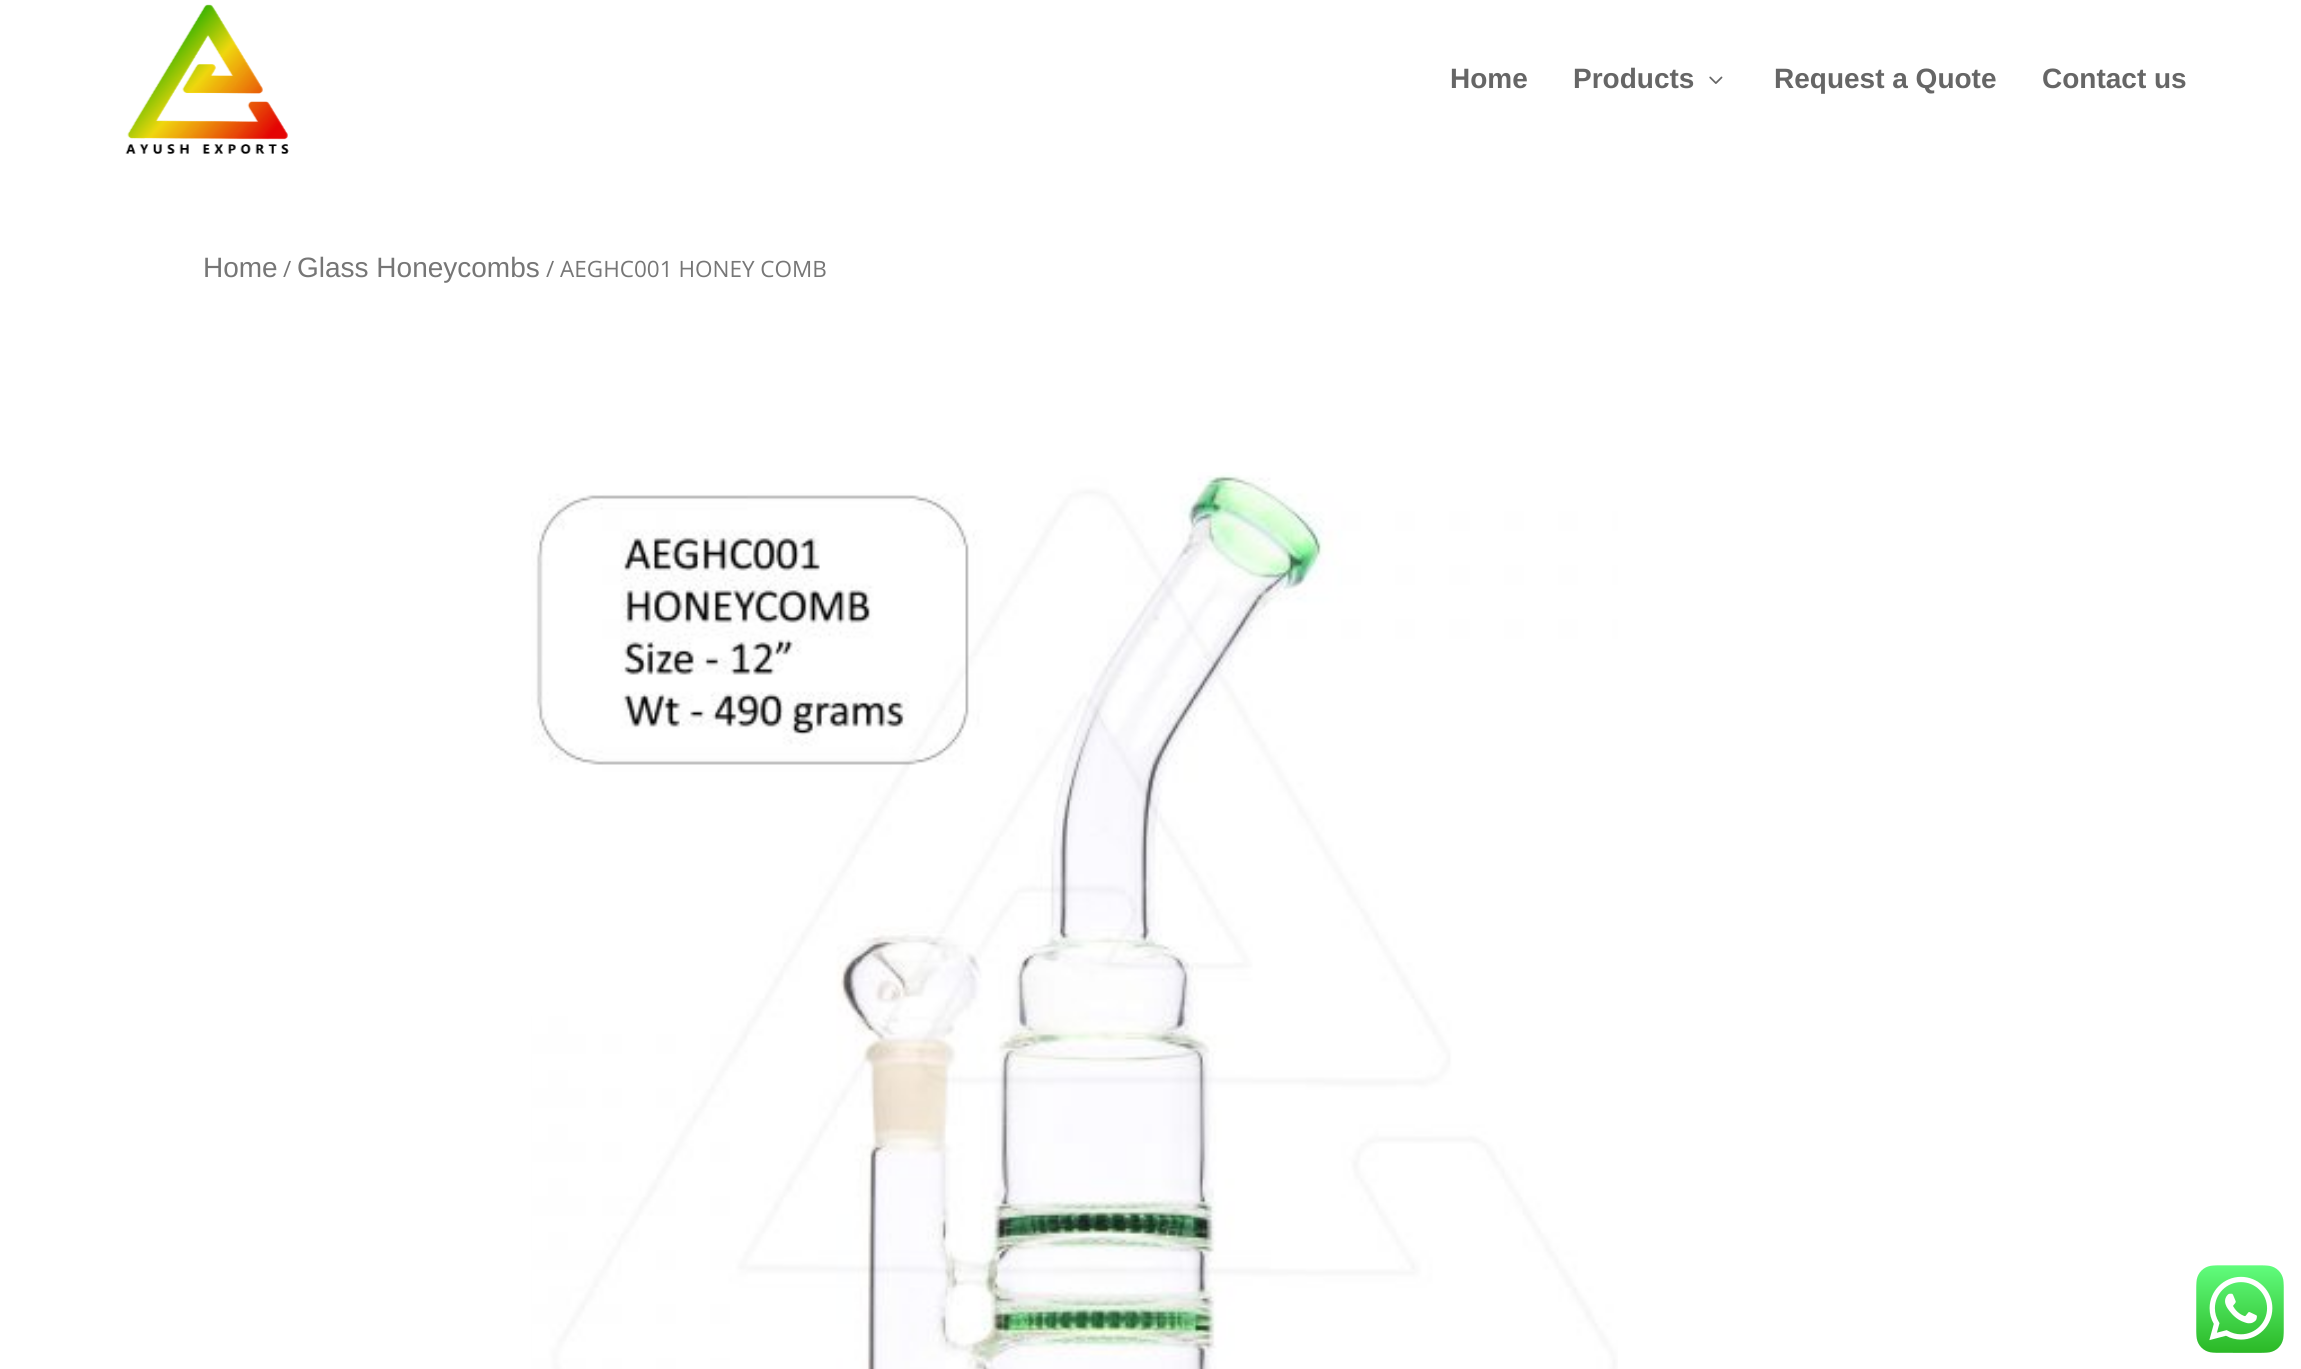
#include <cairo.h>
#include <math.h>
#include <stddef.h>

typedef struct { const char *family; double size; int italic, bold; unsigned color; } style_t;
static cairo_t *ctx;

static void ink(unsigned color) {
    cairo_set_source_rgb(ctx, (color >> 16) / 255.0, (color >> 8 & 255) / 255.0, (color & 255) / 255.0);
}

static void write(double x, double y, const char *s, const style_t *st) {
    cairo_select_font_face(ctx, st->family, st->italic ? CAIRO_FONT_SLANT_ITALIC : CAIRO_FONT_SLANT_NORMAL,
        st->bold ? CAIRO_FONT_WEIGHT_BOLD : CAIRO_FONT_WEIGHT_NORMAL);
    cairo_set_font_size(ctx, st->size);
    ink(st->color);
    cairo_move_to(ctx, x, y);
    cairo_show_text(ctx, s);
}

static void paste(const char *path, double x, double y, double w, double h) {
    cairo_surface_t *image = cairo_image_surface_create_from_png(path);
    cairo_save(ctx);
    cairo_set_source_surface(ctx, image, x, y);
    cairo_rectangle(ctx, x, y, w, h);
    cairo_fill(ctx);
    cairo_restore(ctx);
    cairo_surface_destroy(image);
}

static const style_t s1 = {"Liberation Sans", 28, 0, 1, 0x666666};
static const style_t s2 = {"Liberation Sans", 28, 0, 0, 0x767676};
static const style_t s3 = {"Open Sans", 22.5, 0, 0, 0x767676};

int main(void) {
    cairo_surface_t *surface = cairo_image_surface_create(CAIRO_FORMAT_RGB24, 2301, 1369);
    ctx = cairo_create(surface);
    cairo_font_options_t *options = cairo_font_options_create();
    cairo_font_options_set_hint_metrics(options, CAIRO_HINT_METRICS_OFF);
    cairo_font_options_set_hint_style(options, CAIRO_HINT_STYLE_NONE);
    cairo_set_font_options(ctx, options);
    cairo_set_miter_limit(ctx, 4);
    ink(0xffffff);
    cairo_paint(ctx);
    paste("pic1.png", 125, 4, 164, 150);
    write(1450, 88, "Home", &s1);
    write(1573, 88, "Products", &s1);
    paste("pic2.png", 1709, 76, 14, 8);
    write(1774, 88, "Request a Quote", &s1);
    write(2042, 88, "Contact us", &s1);
    write(203, 277, "Home", &s2);
    write(283, 277, "/", &s3);
    write(297, 277, "Glass Honeycombs", &s2);
    write(546, 277, "/ AEGHC001 HONEY COMB", &s3);
    paste("pic3.png", 531, 472, 1087, 897);
    paste("pic4.png", 2196, 1265, 88, 88);
    cairo_surface_write_to_png(surface, "screenshot.png");
    cairo_font_options_destroy(options);
    cairo_destroy(ctx);
    cairo_surface_destroy(surface);
    return 0;
}
